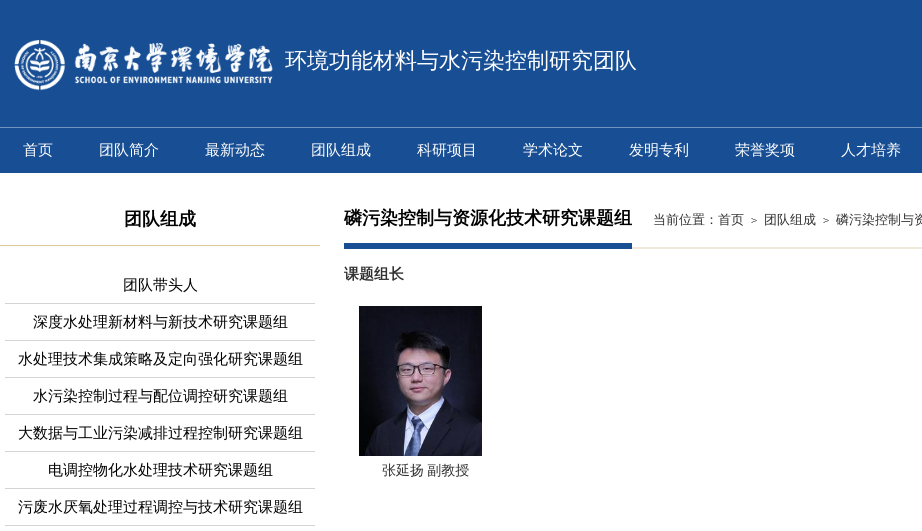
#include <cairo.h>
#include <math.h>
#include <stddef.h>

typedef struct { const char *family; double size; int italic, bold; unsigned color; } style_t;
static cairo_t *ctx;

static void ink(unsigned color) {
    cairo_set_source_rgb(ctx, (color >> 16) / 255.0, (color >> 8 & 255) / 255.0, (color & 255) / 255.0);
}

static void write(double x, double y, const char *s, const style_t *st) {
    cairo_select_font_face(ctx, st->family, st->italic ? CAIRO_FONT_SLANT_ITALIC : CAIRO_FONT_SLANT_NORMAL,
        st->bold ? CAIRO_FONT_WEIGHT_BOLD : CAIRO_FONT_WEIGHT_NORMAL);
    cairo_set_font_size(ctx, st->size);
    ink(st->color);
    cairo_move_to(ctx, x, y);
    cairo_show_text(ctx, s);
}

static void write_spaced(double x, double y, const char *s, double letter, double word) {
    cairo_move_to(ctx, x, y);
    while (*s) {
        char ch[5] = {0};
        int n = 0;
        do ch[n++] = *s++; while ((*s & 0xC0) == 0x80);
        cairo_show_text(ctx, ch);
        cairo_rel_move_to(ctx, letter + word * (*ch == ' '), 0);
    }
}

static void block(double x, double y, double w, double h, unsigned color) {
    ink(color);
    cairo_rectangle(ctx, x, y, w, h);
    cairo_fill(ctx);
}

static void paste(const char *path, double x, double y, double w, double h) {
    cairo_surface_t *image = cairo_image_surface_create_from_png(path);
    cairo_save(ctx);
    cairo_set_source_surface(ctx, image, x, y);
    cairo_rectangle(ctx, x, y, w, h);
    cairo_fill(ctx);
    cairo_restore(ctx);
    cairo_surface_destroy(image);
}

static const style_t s1 = {"WenQuanYi Zen Hei Medium", 22, 0, 0, 0xffffff};
static const style_t s2 = {"WenQuanYi Zen Hei Medium", 15, 0, 0, 0xffffff};
static const style_t s3 = {"WenQuanYi Zen Hei", 18, 0, 1, 0x000000};
static const style_t s4 = {"WenQuanYi Zen Hei Medium", 15, 0, 0, 0x000000};
static const style_t s5 = {"WenQuanYi Zen Hei Medium", 13, 0, 0, 0x313131};
static const style_t s6 = {"WenQuanYi Zen Hei", 15, 0, 1, 0x313131};

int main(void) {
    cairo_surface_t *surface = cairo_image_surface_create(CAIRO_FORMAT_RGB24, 922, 531);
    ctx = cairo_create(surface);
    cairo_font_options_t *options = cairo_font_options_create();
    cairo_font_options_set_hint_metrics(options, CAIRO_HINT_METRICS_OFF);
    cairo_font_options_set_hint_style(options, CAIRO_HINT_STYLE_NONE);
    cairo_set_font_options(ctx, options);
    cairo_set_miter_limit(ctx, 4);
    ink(0x174e94);
    cairo_paint(ctx);
    block(0, 127, 922, 1, 0x7394be);
    paste("pic1.png", 14, 40, 259, 51);
    write(285, 68, "环境功能材料与水污染控制研究团队", &s1);
    write(23, 155, "首页", &s2);
    write(99, 155, "团队简介", &s2);
    write(205, 155, "最新动态", &s2);
    write(311, 155, "团队组成", &s2);
    write(417, 155, "科研项目", &s2);
    write(523, 155, "学术论文", &s2);
    write(629, 155, "发明专利", &s2);
    write(735, 155, "荣誉奖项", &s2);
    write(841, 155, "人才培养", &s2);
    block(0, 173, 922, 358, 0xffffff);
    block(0, 245, 320, 1, 0xddc992);
    write(124, 225, "团队组成", &s3);
    block(5, 303, 310, 1, 0xd4d4d4);
    write(123, 290, "团队带头人", &s4);
    block(5, 340, 310, 1, 0xd4d4d4);
    write(33, 327, "深度水处理新材料与新技术研究课题组", &s4);
    block(5, 377, 310, 1, 0xd4d4d4);
    write(18, 364, "水处理技术集成策略及定向强化研究课题组", &s4);
    block(5, 414, 310, 1, 0xd4d4d4);
    write(33, 401, "水污染控制过程与配位调控研究课题组", &s4);
    block(5, 451, 310, 1, 0xd4d4d4);
    write(18, 438, "大数据与工业污染减排过程控制研究课题组", &s4);
    block(5, 488, 310, 1, 0xd4d4d4);
    write(48, 475, "电调控物化水处理技术研究课题组", &s4);
    block(5, 525, 310, 1, 0xd4d4d4);
    write(18, 512, "污废水厌氧处理过程调控与技术研究课题组", &s4);
    block(632, 247, 290, 2, 0xefe9da);
    block(344, 243, 288, 6, 0x174e94);
    write(344, 224, "磷污染控制与资源化技术研究课题组", &s3);
    write(653, 224, "当前位置：首页", &s5);
    paste("pic2.png", 751, 218, 6, 5);
    write(764, 224, "团队组成", &s5);
    paste("pic2.png", 823, 218, 6, 5);
    write(836, 224, "磷污染控制与资", &s5);
    write(344, 279, "课题组长", &s6);
    paste("pic3.png", 359, 306, 123, 150);
    cairo_select_font_face(ctx, "WenQuanYi Zen Hei Medium", CAIRO_FONT_SLANT_NORMAL, CAIRO_FONT_WEIGHT_NORMAL);
    cairo_set_font_size(ctx, 14);
    write_spaced(382, 475, "张延扬 副教授", 0, -1);
    cairo_surface_write_to_png(surface, "screenshot.png");
    cairo_font_options_destroy(options);
    cairo_destroy(ctx);
    cairo_surface_destroy(surface);
    return 0;
}
